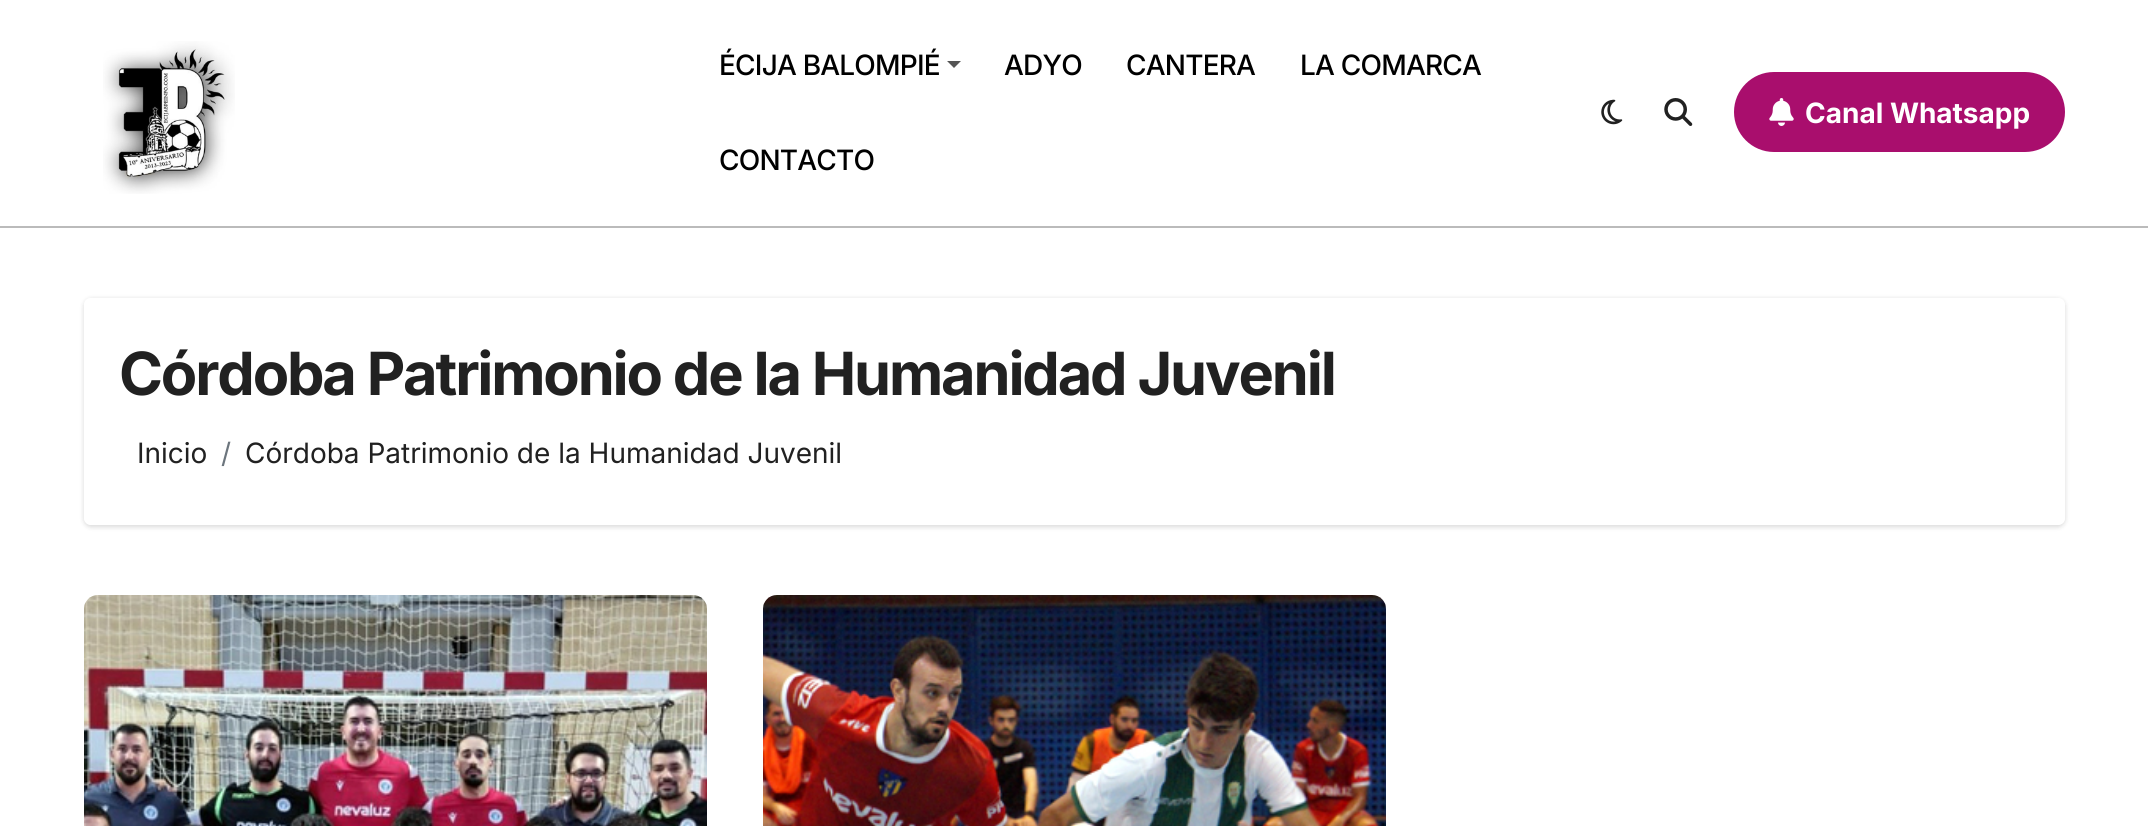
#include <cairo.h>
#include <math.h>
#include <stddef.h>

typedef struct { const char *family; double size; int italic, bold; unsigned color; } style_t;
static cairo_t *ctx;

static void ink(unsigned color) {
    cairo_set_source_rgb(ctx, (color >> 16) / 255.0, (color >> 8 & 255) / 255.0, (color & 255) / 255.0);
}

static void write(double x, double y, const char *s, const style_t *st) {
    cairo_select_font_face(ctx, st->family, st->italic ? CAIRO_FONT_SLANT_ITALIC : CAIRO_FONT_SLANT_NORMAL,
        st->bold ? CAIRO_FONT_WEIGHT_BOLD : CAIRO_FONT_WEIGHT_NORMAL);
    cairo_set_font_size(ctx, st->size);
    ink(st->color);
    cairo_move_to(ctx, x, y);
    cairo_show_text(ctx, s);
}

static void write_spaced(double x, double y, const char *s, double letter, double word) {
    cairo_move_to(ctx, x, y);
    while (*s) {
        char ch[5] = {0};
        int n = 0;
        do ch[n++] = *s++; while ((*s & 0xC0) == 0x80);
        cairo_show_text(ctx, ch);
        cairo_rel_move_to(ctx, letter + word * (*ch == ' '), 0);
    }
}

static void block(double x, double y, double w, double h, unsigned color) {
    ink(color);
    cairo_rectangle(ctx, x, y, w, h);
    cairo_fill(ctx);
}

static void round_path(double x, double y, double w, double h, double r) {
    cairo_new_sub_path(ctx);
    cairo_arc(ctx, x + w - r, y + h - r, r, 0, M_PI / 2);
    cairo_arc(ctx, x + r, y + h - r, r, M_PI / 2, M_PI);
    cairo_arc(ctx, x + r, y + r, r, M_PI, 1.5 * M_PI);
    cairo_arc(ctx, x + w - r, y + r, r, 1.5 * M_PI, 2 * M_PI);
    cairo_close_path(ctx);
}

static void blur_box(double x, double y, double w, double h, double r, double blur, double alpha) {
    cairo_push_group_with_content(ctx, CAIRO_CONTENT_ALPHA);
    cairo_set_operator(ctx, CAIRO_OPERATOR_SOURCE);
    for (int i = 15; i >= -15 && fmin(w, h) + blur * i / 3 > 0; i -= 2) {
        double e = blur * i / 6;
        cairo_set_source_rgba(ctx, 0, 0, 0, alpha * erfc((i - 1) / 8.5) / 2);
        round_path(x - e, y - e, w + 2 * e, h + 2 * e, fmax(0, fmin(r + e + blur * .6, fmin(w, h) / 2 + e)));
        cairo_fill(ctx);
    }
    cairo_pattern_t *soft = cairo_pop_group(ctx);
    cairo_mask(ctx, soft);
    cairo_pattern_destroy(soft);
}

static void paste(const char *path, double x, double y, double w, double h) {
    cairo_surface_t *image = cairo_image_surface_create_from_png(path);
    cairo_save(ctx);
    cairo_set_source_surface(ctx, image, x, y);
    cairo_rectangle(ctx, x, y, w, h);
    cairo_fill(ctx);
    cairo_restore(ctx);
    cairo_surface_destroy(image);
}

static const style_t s1 = {"Inter", 28, 0, 1, 0xffffff};
static const style_t s2 = {"Inter", 28, 0, 0, 0x212121};
static const style_t s3 = {"Inter", 28, 0, 0, 0x6c757d};

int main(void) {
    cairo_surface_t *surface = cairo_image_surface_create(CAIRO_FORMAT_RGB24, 2148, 826);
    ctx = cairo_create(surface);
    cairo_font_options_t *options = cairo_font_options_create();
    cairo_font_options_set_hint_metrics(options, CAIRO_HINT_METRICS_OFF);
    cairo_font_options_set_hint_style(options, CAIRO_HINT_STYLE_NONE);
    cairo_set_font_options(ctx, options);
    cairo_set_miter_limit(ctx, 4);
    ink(0xffffff);
    cairo_paint(ctx);
    block(0, 226, 2148, 2, 0xbbbbbb);
    paste("pic1.png", 103, 41, 132, 153);
    cairo_select_font_face(ctx, "Inter Medium", CAIRO_FONT_SLANT_NORMAL, CAIRO_FONT_WEIGHT_NORMAL);
    cairo_set_font_size(ctx, 28);
    ink(0x000000);
    write_spaced(719, 75, "ÉCIJA BALOMPIÉ", -0.8, 0);
    ink(0x555555);
    cairo_new_path(ctx);
    cairo_move_to(ctx, 947, 61);
    cairo_line_to(ctx, 961, 61);
    cairo_line_to(ctx, 954, 68);
    cairo_close_path(ctx);
    cairo_fill(ctx);
    ink(0x000000);
    write_spaced(1004, 75, "ADYO", -0.8, 0);
    write_spaced(1126, 75, "CANTERA", -0.8, 0);
    write_spaced(1300, 75, "LA COMARCA", -0.8, 0);
    write_spaced(719, 170, "CONTACTO", -0.8, 0);
    paste("pic2.png", 1601, 99, 22, 26);
    paste("pic3.png", 1664, 98, 29, 28);
    ink(0xa90e6d);
    round_path(1734, 72, 331, 80, 40);
    cairo_fill(ctx);
    paste("pic4.png", 1769, 98, 25, 28);
    write(1805, 123, "Canal Whatsapp", &s1);
    cairo_save(ctx);
    cairo_set_fill_rule(ctx, CAIRO_FILL_RULE_EVEN_ODD);
    cairo_new_path(ctx);
    cairo_move_to(ctx, 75, 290);
    cairo_line_to(ctx, 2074, 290);
    cairo_line_to(ctx, 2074, 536);
    cairo_line_to(ctx, 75, 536);
    cairo_close_path(ctx);
    cairo_move_to(ctx, 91, 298);
    cairo_line_to(ctx, 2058, 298);
    cairo_curve_to(ctx, 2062, 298, 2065, 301, 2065, 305);
    cairo_line_to(ctx, 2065, 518);
    cairo_curve_to(ctx, 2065, 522, 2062, 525, 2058, 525);
    cairo_line_to(ctx, 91, 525);
    cairo_curve_to(ctx, 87, 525, 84, 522, 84, 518);
    cairo_line_to(ctx, 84, 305);
    cairo_curve_to(ctx, 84, 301, 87, 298, 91, 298);
    cairo_close_path(ctx);
    cairo_clip(ctx);
    ink(0x000000);
    blur_box(84, 299, 1981, 228, 7, 2.5, 0.15);
    cairo_restore(ctx);
    cairo_set_font_size(ctx, 59.5);
    ink(0x212121);
    write_spaced(119, 395, "Córdoba Patrimonio de la Humanidad Juvenil", -2.15, 0);
    write(137, 463, "Inicio", &s2);
    write(221, 463, "/", &s3);
    write(245, 463, "Córdoba Patrimonio de la Humanidad Juvenil", &s2);
    paste("pic5.png", 84, 595, 623, 231);
    paste("pic6.png", 763, 595, 623, 231);
    cairo_surface_write_to_png(surface, "screenshot.png");
    cairo_font_options_destroy(options);
    cairo_destroy(ctx);
    cairo_surface_destroy(surface);
    return 0;
}
